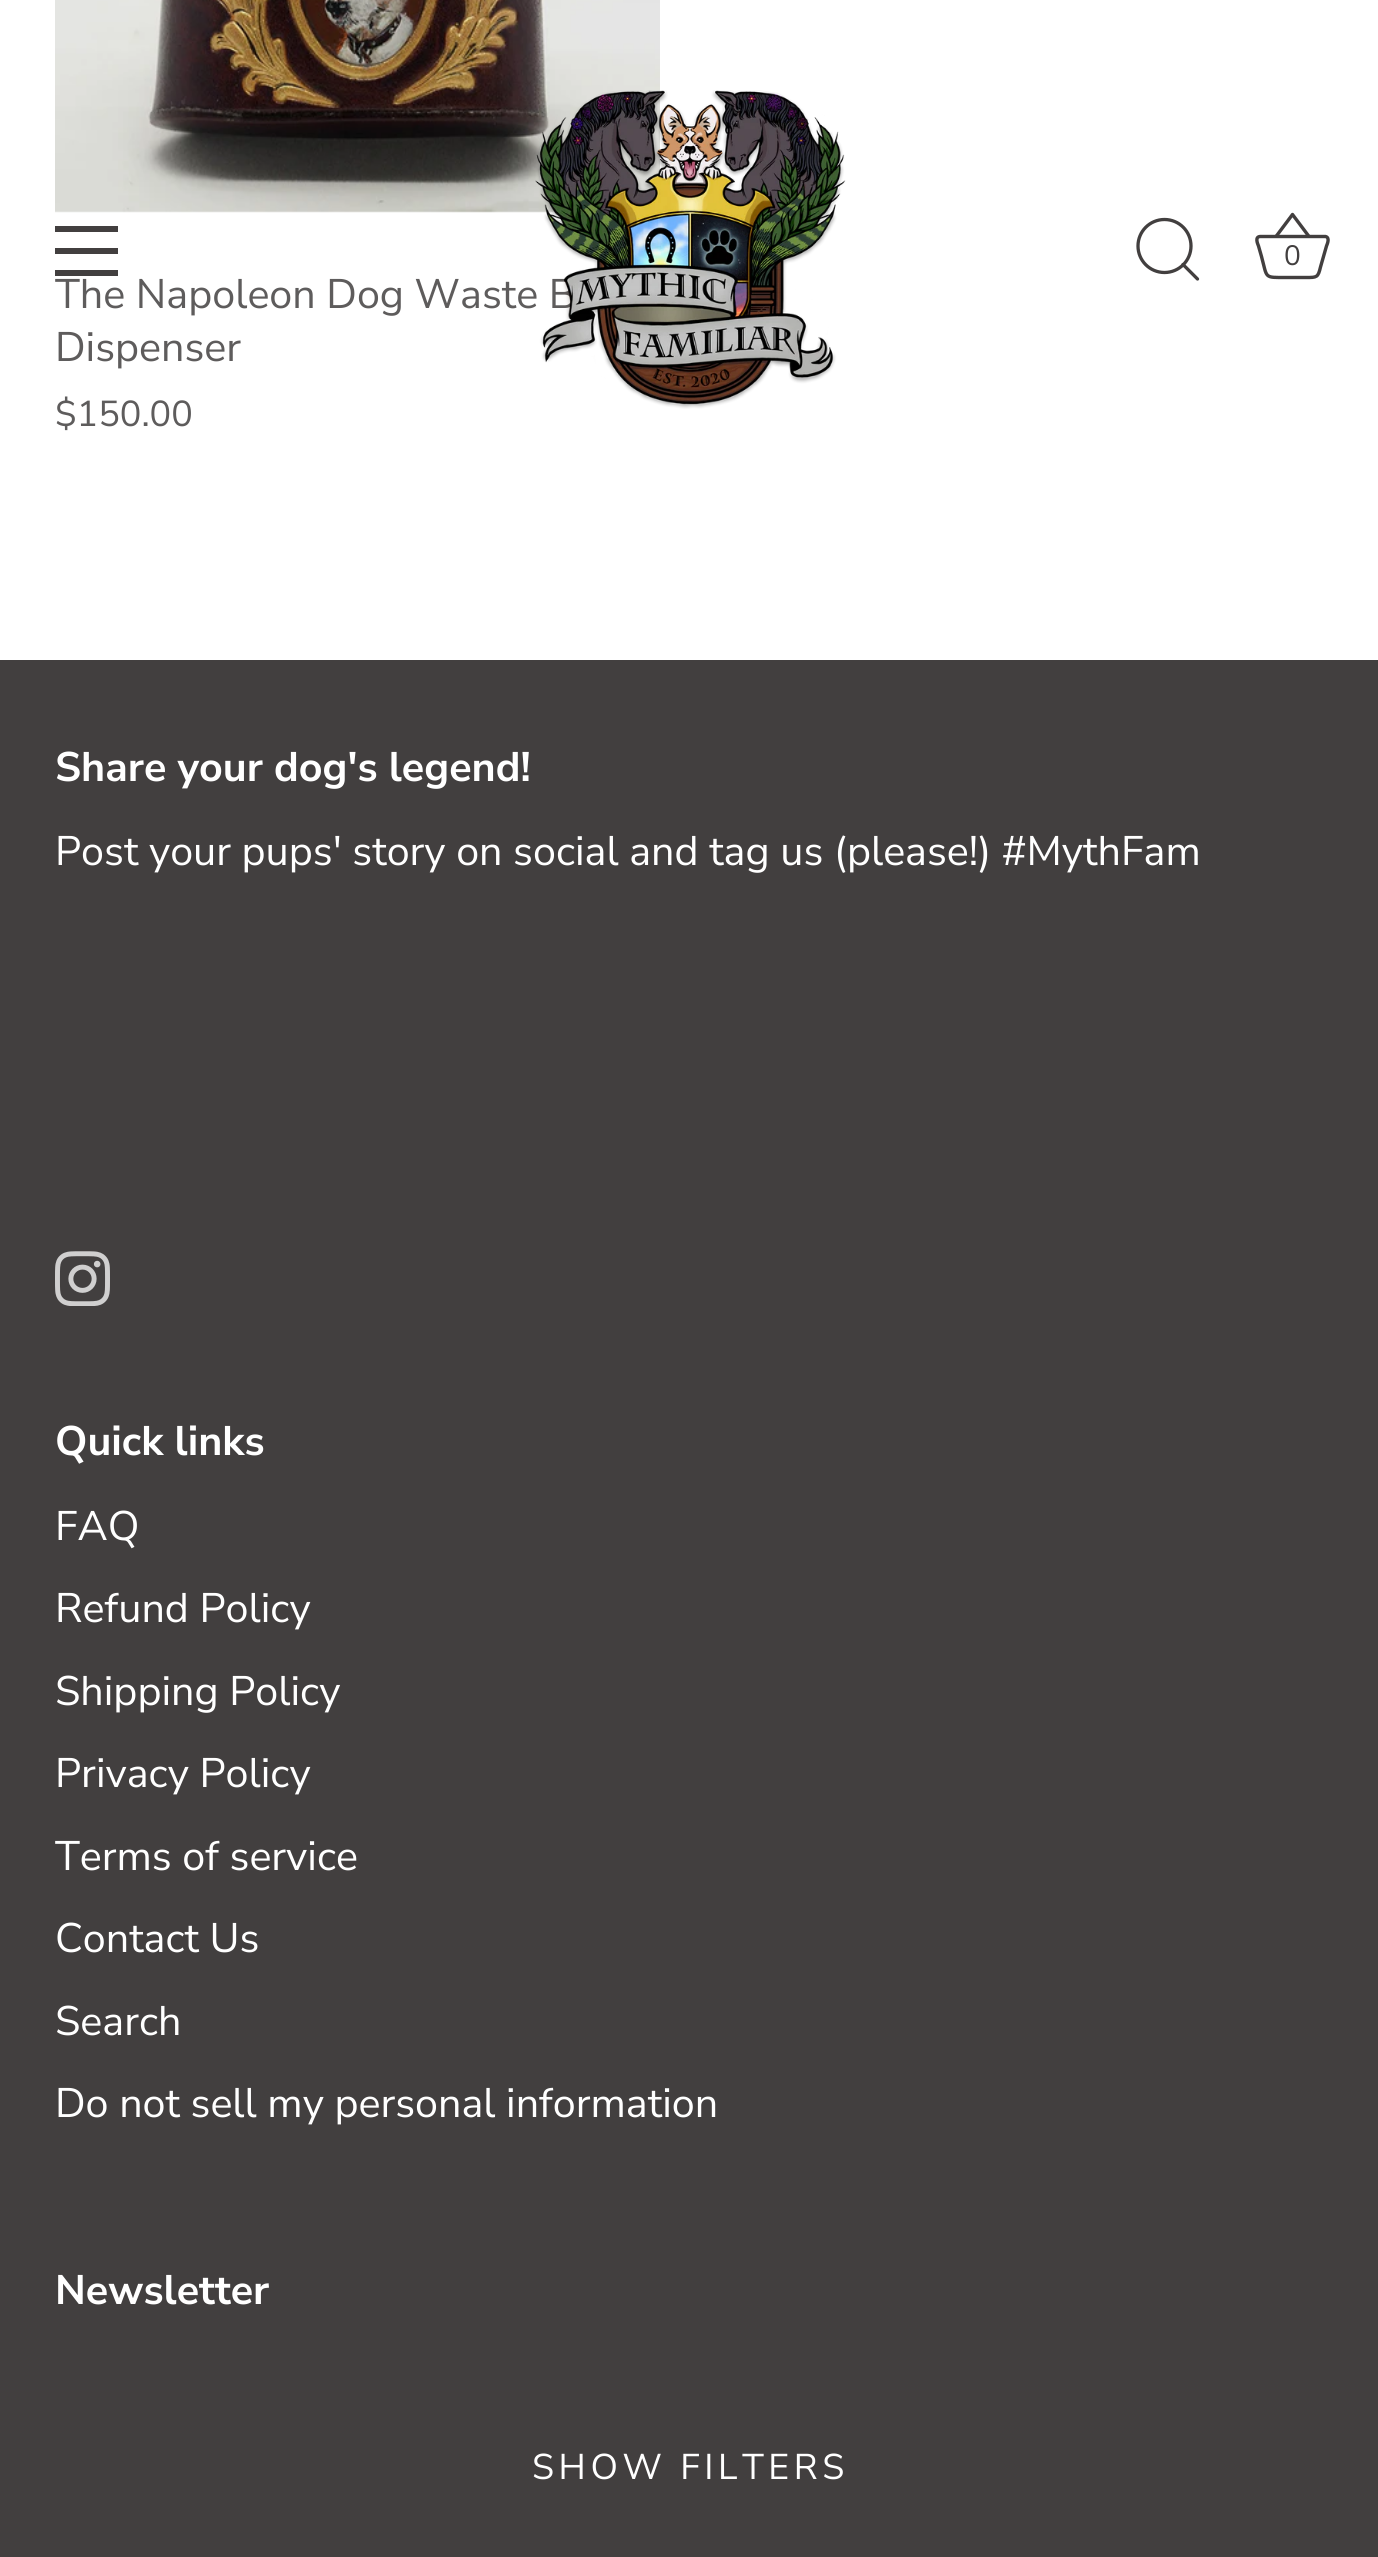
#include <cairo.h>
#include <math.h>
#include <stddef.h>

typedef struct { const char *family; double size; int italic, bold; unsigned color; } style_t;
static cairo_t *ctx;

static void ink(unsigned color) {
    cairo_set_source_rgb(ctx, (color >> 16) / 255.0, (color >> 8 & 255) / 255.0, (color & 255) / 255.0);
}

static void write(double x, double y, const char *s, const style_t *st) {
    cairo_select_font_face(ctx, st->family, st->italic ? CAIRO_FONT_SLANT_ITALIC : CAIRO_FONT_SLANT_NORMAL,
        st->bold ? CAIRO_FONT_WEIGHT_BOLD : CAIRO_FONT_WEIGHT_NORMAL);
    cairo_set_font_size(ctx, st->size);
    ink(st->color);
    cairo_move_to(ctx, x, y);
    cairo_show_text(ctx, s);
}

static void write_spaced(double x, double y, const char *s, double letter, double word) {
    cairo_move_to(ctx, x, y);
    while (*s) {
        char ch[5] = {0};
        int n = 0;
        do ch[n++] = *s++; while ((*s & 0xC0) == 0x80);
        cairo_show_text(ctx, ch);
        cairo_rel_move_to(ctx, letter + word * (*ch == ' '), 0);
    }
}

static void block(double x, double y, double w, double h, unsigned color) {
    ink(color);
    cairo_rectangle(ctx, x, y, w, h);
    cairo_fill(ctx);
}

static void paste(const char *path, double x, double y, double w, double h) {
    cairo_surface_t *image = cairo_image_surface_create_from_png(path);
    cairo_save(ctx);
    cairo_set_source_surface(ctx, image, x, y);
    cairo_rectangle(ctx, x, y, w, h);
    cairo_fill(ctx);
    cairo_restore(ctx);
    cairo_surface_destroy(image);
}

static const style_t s1 = {"Nunito Sans", 41.25, 0, 0, 0x5e5c5c};
static const style_t s2 = {"Nunito Sans", 28, 0, 0, 0x423f3f};
static const style_t s3 = {"Nunito Sans", 36, 0, 0, 0x5e5c5c};
static const style_t s4 = {"Nunito Sans", 41.25, 0, 1, 0xffffff};
static const style_t s5 = {"Nunito Sans", 41.25, 0, 0, 0xffffff};

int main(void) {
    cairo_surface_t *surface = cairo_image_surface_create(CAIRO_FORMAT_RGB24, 1378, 2557);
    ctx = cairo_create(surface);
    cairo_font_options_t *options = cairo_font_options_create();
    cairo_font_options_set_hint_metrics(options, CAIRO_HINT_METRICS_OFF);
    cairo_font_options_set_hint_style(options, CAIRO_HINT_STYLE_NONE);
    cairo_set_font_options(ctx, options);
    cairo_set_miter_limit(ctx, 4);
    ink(0xffffff);
    cairo_paint(ctx);
    block(55, 226, 63, 6, 0x423f3f);
    block(55, 248, 63, 6, 0x423f3f);
    block(55, 270, 63, 6, 0x423f3f);
    paste("pic2.png", 55, 0, 605, 213);
    write(55, 308, "The Napoleon Dog Waste B", &s1);
    paste("pic1.png", 535, 90, 311, 319);
    cairo_arc(ctx, 1164.5, 246, 26.5, 0, 2 * M_PI);
    ink(0x423f3f);
    cairo_set_line_width(ctx, 3.3);
    cairo_stroke(ctx);
    cairo_new_path(ctx);
    cairo_move_to(ctx, 1197.5, 279);
    cairo_line_to(ctx, 1183, 264.5);
    cairo_set_line_cap(ctx, CAIRO_LINE_CAP_ROUND);
    cairo_set_line_join(ctx, CAIRO_LINE_JOIN_ROUND);
    cairo_stroke(ctx);
    cairo_new_path(ctx);
    cairo_move_to(ctx, 1260.5, 236.5);
    cairo_curve_to(ctx, 1254.5, 236.5, 1257.5, 243.5, 1258.5, 246);
    cairo_line_to(ctx, 1261.5, 256.5);
    cairo_curve_to(ctx, 1267.5, 278.5, 1263.5, 277.5, 1286, 277.5);
    cairo_line_to(ctx, 1306, 277.5);
    cairo_curve_to(ctx, 1317, 277.5, 1318, 277.5, 1320.5, 267);
    cairo_line_to(ctx, 1326.5, 246);
    cairo_curve_to(ctx, 1327.5, 243.5, 1330, 237.5, 1325.5, 236.5);
    cairo_line_to(ctx, 1260, 236.5);
    cairo_set_line_width(ctx, 3.4);
    cairo_set_line_cap(ctx, CAIRO_LINE_CAP_BUTT);
    cairo_stroke(ctx);
    cairo_new_path(ctx);
    cairo_move_to(ctx, 1276, 236.5);
    cairo_line_to(ctx, 1292.5, 214.5);
    cairo_line_to(ctx, 1309, 236.5);
    cairo_stroke(ctx);
    write(1284, 265, "0", &s2);
    write(55, 361, "Dispenser", &s1);
    write(55, 426, "$150.00", &s3);
    block(0, 660, 1378, 1897, 0x423f3f);
    cairo_set_font_size(ctx, 35.75);
    ink(0xffffff);
    write_spaced(532, 2479, "SHOW FILTERS", 4.6, 0);
    write(55, 781, "Share your dog's legend!", &s4);
    write(55, 865, "Post your pups' story on social and tag us (please!) #MythFam", &s5);
    paste("pic3.png", 55, 1251, 55, 55);
    write(55, 1455, "Quick links", &s4);
    write(55, 1540, "FAQ", &s5);
    write(55, 1622, "Refund Policy", &s5);
    write(55, 1705, "Shipping Policy", &s5);
    write(55, 1787, "Privacy Policy", &s5);
    write(55, 1870, "Terms of service", &s5);
    write(55, 1952, "Contact Us", &s5);
    write(55, 2035, "Search", &s5);
    write(55, 2117, "Do not sell my personal information", &s5);
    write(55, 2304, "Newsletter", &s4);
    cairo_surface_write_to_png(surface, "screenshot.png");
    cairo_font_options_destroy(options);
    cairo_destroy(ctx);
    cairo_surface_destroy(surface);
    return 0;
}
